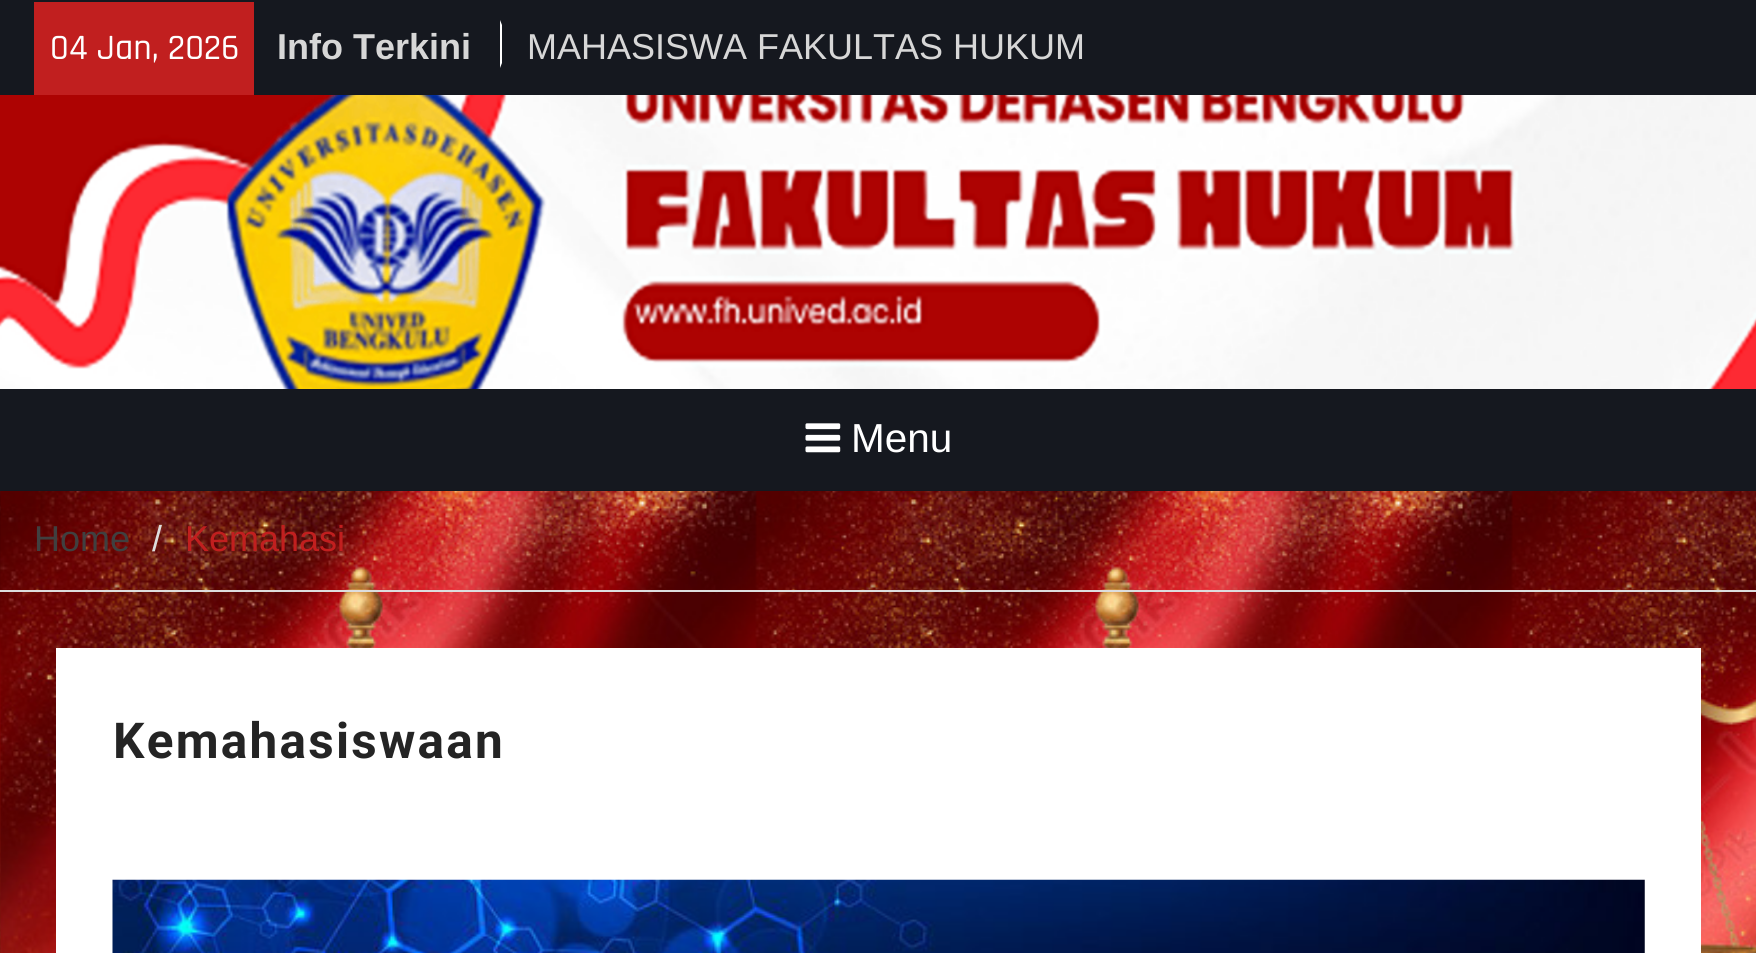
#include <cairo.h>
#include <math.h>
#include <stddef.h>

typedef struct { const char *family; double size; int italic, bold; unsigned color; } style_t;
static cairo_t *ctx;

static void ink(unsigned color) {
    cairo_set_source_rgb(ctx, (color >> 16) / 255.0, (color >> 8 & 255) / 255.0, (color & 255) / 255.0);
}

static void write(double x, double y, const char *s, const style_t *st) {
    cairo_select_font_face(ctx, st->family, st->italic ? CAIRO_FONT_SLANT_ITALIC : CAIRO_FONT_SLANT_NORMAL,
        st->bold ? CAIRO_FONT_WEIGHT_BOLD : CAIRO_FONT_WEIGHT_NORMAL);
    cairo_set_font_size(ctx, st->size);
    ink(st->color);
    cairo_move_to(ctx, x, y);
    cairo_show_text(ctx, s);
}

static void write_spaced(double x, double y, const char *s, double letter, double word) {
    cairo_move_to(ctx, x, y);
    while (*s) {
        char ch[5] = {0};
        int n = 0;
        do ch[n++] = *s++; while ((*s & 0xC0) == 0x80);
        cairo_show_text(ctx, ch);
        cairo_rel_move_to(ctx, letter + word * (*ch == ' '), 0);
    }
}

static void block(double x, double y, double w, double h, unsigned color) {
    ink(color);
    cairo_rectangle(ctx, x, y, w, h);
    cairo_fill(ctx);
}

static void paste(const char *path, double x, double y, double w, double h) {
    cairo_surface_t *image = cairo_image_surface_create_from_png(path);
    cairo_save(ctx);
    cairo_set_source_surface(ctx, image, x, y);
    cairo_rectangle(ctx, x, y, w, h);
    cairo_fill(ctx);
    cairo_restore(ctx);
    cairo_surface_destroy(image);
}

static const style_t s1 = {"Rajdhani Medium", 36, 0, 0, 0xffffff};
static const style_t s2 = {"Liberation Sans", 36, 0, 1, 0xd7d7d7};
static const style_t s3 = {"Liberation Sans", 36, 0, 0, 0xd7d7d7};
static const style_t s4 = {"Liberation Sans", 40.5, 0, 0, 0xffffff};
static const style_t s5 = {"Liberation Sans", 36, 0, 0, 0x404040};
static const style_t s6 = {"Liberation Sans", 36, 0, 0, 0xdddddd};
static const style_t s7 = {"Liberation Sans", 36, 0, 0, 0xc11f1f};

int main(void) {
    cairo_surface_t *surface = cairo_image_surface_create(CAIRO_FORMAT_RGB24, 1756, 953);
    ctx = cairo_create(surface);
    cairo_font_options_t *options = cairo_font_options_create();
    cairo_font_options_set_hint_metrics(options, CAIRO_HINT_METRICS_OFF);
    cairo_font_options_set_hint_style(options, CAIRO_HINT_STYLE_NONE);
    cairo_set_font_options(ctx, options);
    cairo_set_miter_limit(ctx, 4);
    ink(0xffffff);
    cairo_paint(ctx);
    paste("pic1.png", 0, 491, 1756, 462);
    block(0, 0, 1756, 95, 0x15181f);
    block(34, 2, 220, 93, 0xc11f1f);
    write(50, 59, "04 Jan, 2026", &s1);
    write(277, 59, "Info Terkini", &s2);
    ink(0xffffff);
    cairo_new_path(ctx);
    cairo_move_to(ctx, 500, 68);
    cairo_line_to(ctx, 500, 20);
    cairo_line_to(ctx, 502, 25);
    cairo_line_to(ctx, 502, 63);
    cairo_close_path(ctx);
    cairo_fill(ctx);
    write(527, 59, "MAHASISWA FAKULTAS HUKUM", &s3);
    paste("pic2.png", 0, 95, 1756, 294);
    block(0, 389, 1756, 102, 0x15181f);
    paste("pic3.png", 805, 423, 36, 30);
    write(851, 452, "Menu", &s4);
    block(0, 590, 1756, 2, 0xdddddd);
    write(34, 551, "Home", &s5);
    write(152, 551, "/", &s6);
    write(185, 551, "Kemahasi", &s7);
    block(56, 648, 1645, 305, 0xffffff);
    cairo_select_font_face(ctx, "Roboto", CAIRO_FONT_SLANT_NORMAL, CAIRO_FONT_WEIGHT_BOLD);
    cairo_set_font_size(ctx, 49.5);
    ink(0x242424);
    write_spaced(113, 758, "Kemahasiswaan", 2.25, 0);
    paste("pic4.png", 112, 879, 1533, 74);
    cairo_surface_write_to_png(surface, "screenshot.png");
    cairo_font_options_destroy(options);
    cairo_destroy(ctx);
    cairo_surface_destroy(surface);
    return 0;
}
